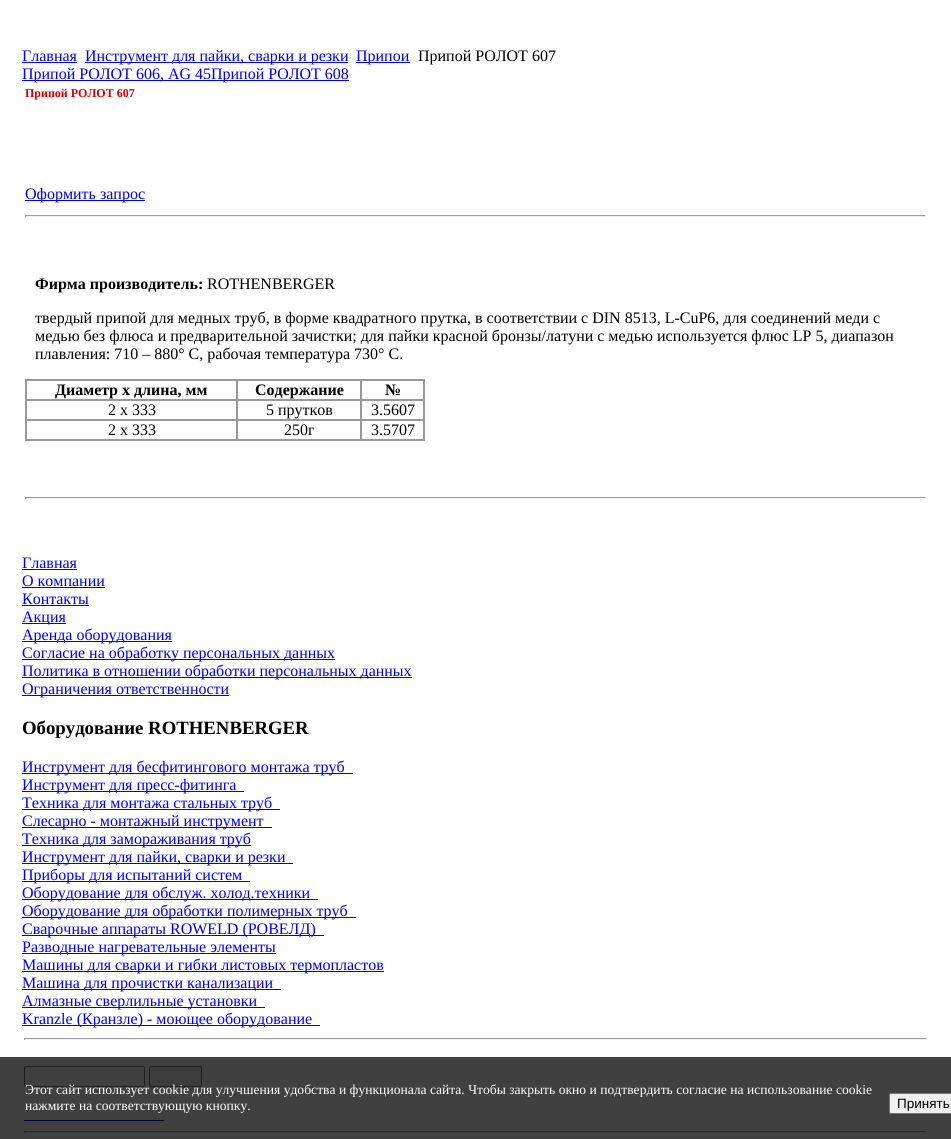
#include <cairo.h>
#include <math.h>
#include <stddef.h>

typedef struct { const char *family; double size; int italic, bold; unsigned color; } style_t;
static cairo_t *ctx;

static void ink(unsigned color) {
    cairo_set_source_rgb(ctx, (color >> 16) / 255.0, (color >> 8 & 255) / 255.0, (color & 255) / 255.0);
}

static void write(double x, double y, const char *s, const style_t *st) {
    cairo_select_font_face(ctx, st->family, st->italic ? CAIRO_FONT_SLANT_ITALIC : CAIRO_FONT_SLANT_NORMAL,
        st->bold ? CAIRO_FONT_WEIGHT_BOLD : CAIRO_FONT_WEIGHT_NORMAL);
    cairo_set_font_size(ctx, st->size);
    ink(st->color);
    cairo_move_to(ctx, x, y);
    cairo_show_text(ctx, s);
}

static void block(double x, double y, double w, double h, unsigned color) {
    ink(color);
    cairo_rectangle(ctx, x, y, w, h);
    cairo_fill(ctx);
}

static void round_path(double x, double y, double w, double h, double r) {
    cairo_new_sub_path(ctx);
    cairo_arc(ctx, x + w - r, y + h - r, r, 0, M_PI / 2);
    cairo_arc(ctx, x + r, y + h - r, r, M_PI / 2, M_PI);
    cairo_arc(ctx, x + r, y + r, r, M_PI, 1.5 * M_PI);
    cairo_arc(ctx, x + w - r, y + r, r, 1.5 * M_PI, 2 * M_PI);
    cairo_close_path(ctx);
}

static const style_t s1 = {"Liberation Serif", 16, 0, 0, 0x0000ee};
static const style_t s2 = {"Liberation Serif", 16, 0, 0, 0x000000};
static const style_t s3 = {"Liberation Serif", 12, 0, 1, 0xcc0000};
static const style_t s4 = {"Liberation Serif", 16, 0, 1, 0x000000};
static const style_t s5 = {"Liberation Serif", 18.75, 0, 1, 0x000000};
static const style_t s6 = {"Liberation Serif", 13.6, 0, 0, 0xffffff};
static const style_t s7 = {"Liberation Sans", 13.5, 0, 0, 0x000000};

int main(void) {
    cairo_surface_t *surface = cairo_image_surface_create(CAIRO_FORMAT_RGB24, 951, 1139);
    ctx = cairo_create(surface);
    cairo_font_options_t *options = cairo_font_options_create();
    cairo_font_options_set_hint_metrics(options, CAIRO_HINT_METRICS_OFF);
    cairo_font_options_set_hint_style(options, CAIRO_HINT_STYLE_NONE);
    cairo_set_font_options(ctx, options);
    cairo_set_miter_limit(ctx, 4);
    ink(0xffffff);
    cairo_paint(ctx);
    write(22, 61, "Главная", &s1);
    block(22, 62, 55, 1, 0x0000ee);
    block(85, 62, 263, 1, 0x0000ee);
    write(85, 61, "Инструмент для пайки, сварки и резки", &s1);
    block(356, 62, 54, 1, 0x0000ee);
    write(356, 61, "Припои", &s1);
    write(418, 61, "Припой РОЛОТ 607", &s2);
    block(22, 80, 327, 1, 0x0000ee);
    write(22, 79, "Припой РОЛОТ 606, AG 45Припой РОЛОТ 608", &s1);
    write(25, 97, "Припой РОЛОТ 607", &s3);
    block(25, 200, 120, 1, 0x0000ee);
    write(25, 199, "Оформить запрос", &s1);
    block(25, 215, 901, 1, 0x9f9f9f);
    block(925, 215, 1, 2, 0xeeeeee);
    block(25, 216, 901, 1, 0xeeeeee);
    block(25, 215, 1, 2, 0x9f9f9f);
    write(35, 289, "Фирма производитель:", &s4);
    write(207, 289, "ROTHENBERGER", &s2);
    write(35, 323, "твердый припой для медных труб, в форме квадратного прутка, в соответствии с DIN 8513, L-CuP6, для соединений меди с", &s2);
    write(35, 341, "медью без флюса и предварительной зачистки; для пайки красной бронзы/латуни с медью используется флюс LP 5, диапазон", &s2);
    write(35, 359, "плавления: 710 – 880° C, рабочая температура 730° C.", &s2);
    cairo_rectangle(ctx, 25.5, 379.5, 399, 61);
    ink(0x999999);
    cairo_set_line_width(ctx, 1);
    cairo_stroke(ctx);
    cairo_rectangle(ctx, 26.5, 380.5, 210, 19);
    cairo_stroke(ctx);
    write(55, 395, "Диаметр х длина, мм", &s4);
    cairo_rectangle(ctx, 237.5, 380.5, 123, 19);
    ink(0x999999);
    cairo_stroke(ctx);
    write(255, 395, "Содержание", &s4);
    cairo_rectangle(ctx, 361.5, 380.5, 62, 19);
    ink(0x999999);
    cairo_stroke(ctx);
    write(385, 395, "№", &s4);
    cairo_rectangle(ctx, 26.5, 400.5, 210, 19);
    ink(0x999999);
    cairo_stroke(ctx);
    write(108, 415, "2 x 333", &s2);
    cairo_rectangle(ctx, 237.5, 400.5, 123, 19);
    ink(0x999999);
    cairo_stroke(ctx);
    write(266, 415, "5 прутков", &s2);
    cairo_rectangle(ctx, 361.5, 400.5, 62, 19);
    ink(0x999999);
    cairo_stroke(ctx);
    write(371, 415, "3.5607", &s2);
    cairo_rectangle(ctx, 26.5, 420.5, 210, 19);
    ink(0x999999);
    cairo_stroke(ctx);
    write(108, 435, "2 x 333", &s2);
    cairo_rectangle(ctx, 237.5, 420.5, 123, 19);
    ink(0x999999);
    cairo_stroke(ctx);
    write(284, 435, "250г", &s2);
    cairo_rectangle(ctx, 361.5, 420.5, 62, 19);
    ink(0x999999);
    cairo_stroke(ctx);
    write(371, 435, "3.5707", &s2);
    block(25, 497, 901, 1, 0x9f9f9f);
    block(925, 497, 1, 2, 0xeeeeee);
    block(25, 498, 901, 1, 0xeeeeee);
    block(25, 497, 1, 2, 0x9f9f9f);
    write(22, 568, "Главная", &s1);
    block(22, 569, 55, 1, 0x0000ee);
    write(22, 586, "О компании", &s1);
    block(22, 587, 83, 1, 0x0000ee);
    write(22, 604, "Контакты", &s1);
    block(22, 605, 67, 1, 0x0000ee);
    block(22, 623, 44, 1, 0x0000ee);
    write(22, 622, "Акция", &s1);
    block(22, 641, 150, 1, 0x0000ee);
    write(22, 640, "Аренда оборудования", &s1);
    block(22, 659, 313, 1, 0x0000ee);
    write(22, 658, "Согласие на обработку персональных данных", &s1);
    block(22, 677, 390, 1, 0x0000ee);
    write(22, 676, "Политика в отношении обработки персональных данных", &s1);
    block(22, 695, 207, 1, 0x0000ee);
    write(22, 694, "Ограничения ответственности", &s1);
    write(22, 734, "Оборудование ROTHENBERGER", &s5);
    block(22, 773, 331, 1, 0x0000ee);
    write(22, 772, "Инструмент для бесфитингового монтажа труб", &s1);
    block(22, 791, 222, 1, 0x0000ee);
    write(22, 790, "Инструмент для пресс-фитинга", &s1);
    block(22, 809, 258, 1, 0x0000ee);
    write(22, 808, "Техника для монтажа стальных труб", &s1);
    block(22, 827, 250, 1, 0x0000ee);
    write(22, 826, "Слесарно - монтажный инструмент", &s1);
    block(22, 845, 229, 1, 0x0000ee);
    write(22, 844, "Техника для замораживания труб", &s1);
    block(22, 863, 271, 1, 0x0000ee);
    write(22, 862, "Инструмент для пайки, сварки и резки", &s1);
    block(22, 881, 228, 1, 0x0000ee);
    write(22, 880, "Приборы для испытаний систем", &s1);
    block(22, 899, 296, 1, 0x0000ee);
    write(22, 898, "Оборудование для обслуж. холод.техники", &s1);
    block(22, 917, 334, 1, 0x0000ee);
    write(22, 916, "Оборудование для обработки полимерных труб", &s1);
    block(22, 935, 302, 1, 0x0000ee);
    write(22, 934, "Cварочные аппараты ROWELD (РОВЕЛД)", &s1);
    block(22, 953, 254, 1, 0x0000ee);
    write(22, 952, "Разводные нагревательные элементы", &s1);
    block(22, 971, 362, 1, 0x0000ee);
    write(22, 970, "Машины для сварки и гибки листовых термопластов", &s1);
    block(22, 989, 259, 1, 0x0000ee);
    write(22, 988, "Машина для прочистки канализации", &s1);
    block(22, 1007, 243, 1, 0x0000ee);
    write(22, 1006, "Алмазные сверлильные установки", &s1);
    block(22, 1025, 298, 1, 0x0000ee);
    write(22, 1024, "Kranzle (Кранзле) - моющее оборудование", &s1);
    block(24, 1038, 903, 1, 0x9f9f9f);
    block(926, 1038, 1, 2, 0xeeeeee);
    block(24, 1039, 903, 1, 0xeeeeee);
    block(24, 1038, 1, 2, 0x9f9f9f);
    round_path(24.5, 1066.5, 120, 20, 1.5);
    ink(0x767676);
    cairo_stroke(ctx);
    ink(0xefefef);
    round_path(149.5, 1066.5, 52, 20, 1.5);
    cairo_fill_preserve(ctx);
    ink(0x767676);
    cairo_stroke(ctx);
    block(24, 1120, 140, 1, 0x0000ee);
    block(24, 1131, 903, 1, 0x9f9f9f);
    block(926, 1131, 1, 2, 0xeeeeee);
    block(24, 1132, 903, 1, 0xeeeeee);
    block(24, 1131, 1, 2, 0x9f9f9f);
    cairo_set_source_rgba(ctx, 0, 0, 0, 0.75);
    cairo_rectangle(ctx, 0, 1057, 951, 82);
    cairo_fill(ctx);
    write(25, 1094, "Этот сайт использует cookie для улучшения удобства и функционала сайта. Чтобы закрыть окно и подтвердить согласие на использование cookie", &s6);
    write(25, 1110, "нажмите на соответствующую кнопку.", &s6);
    ink(0xefefef);
    round_path(889.5, 1093.5, 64, 20, 1.5);
    cairo_fill_preserve(ctx);
    ink(0x767676);
    cairo_stroke(ctx);
    write(897, 1108, "Принять", &s7);
    cairo_surface_write_to_png(surface, "screenshot.png");
    cairo_font_options_destroy(options);
    cairo_destroy(ctx);
    cairo_surface_destroy(surface);
    return 0;
}
